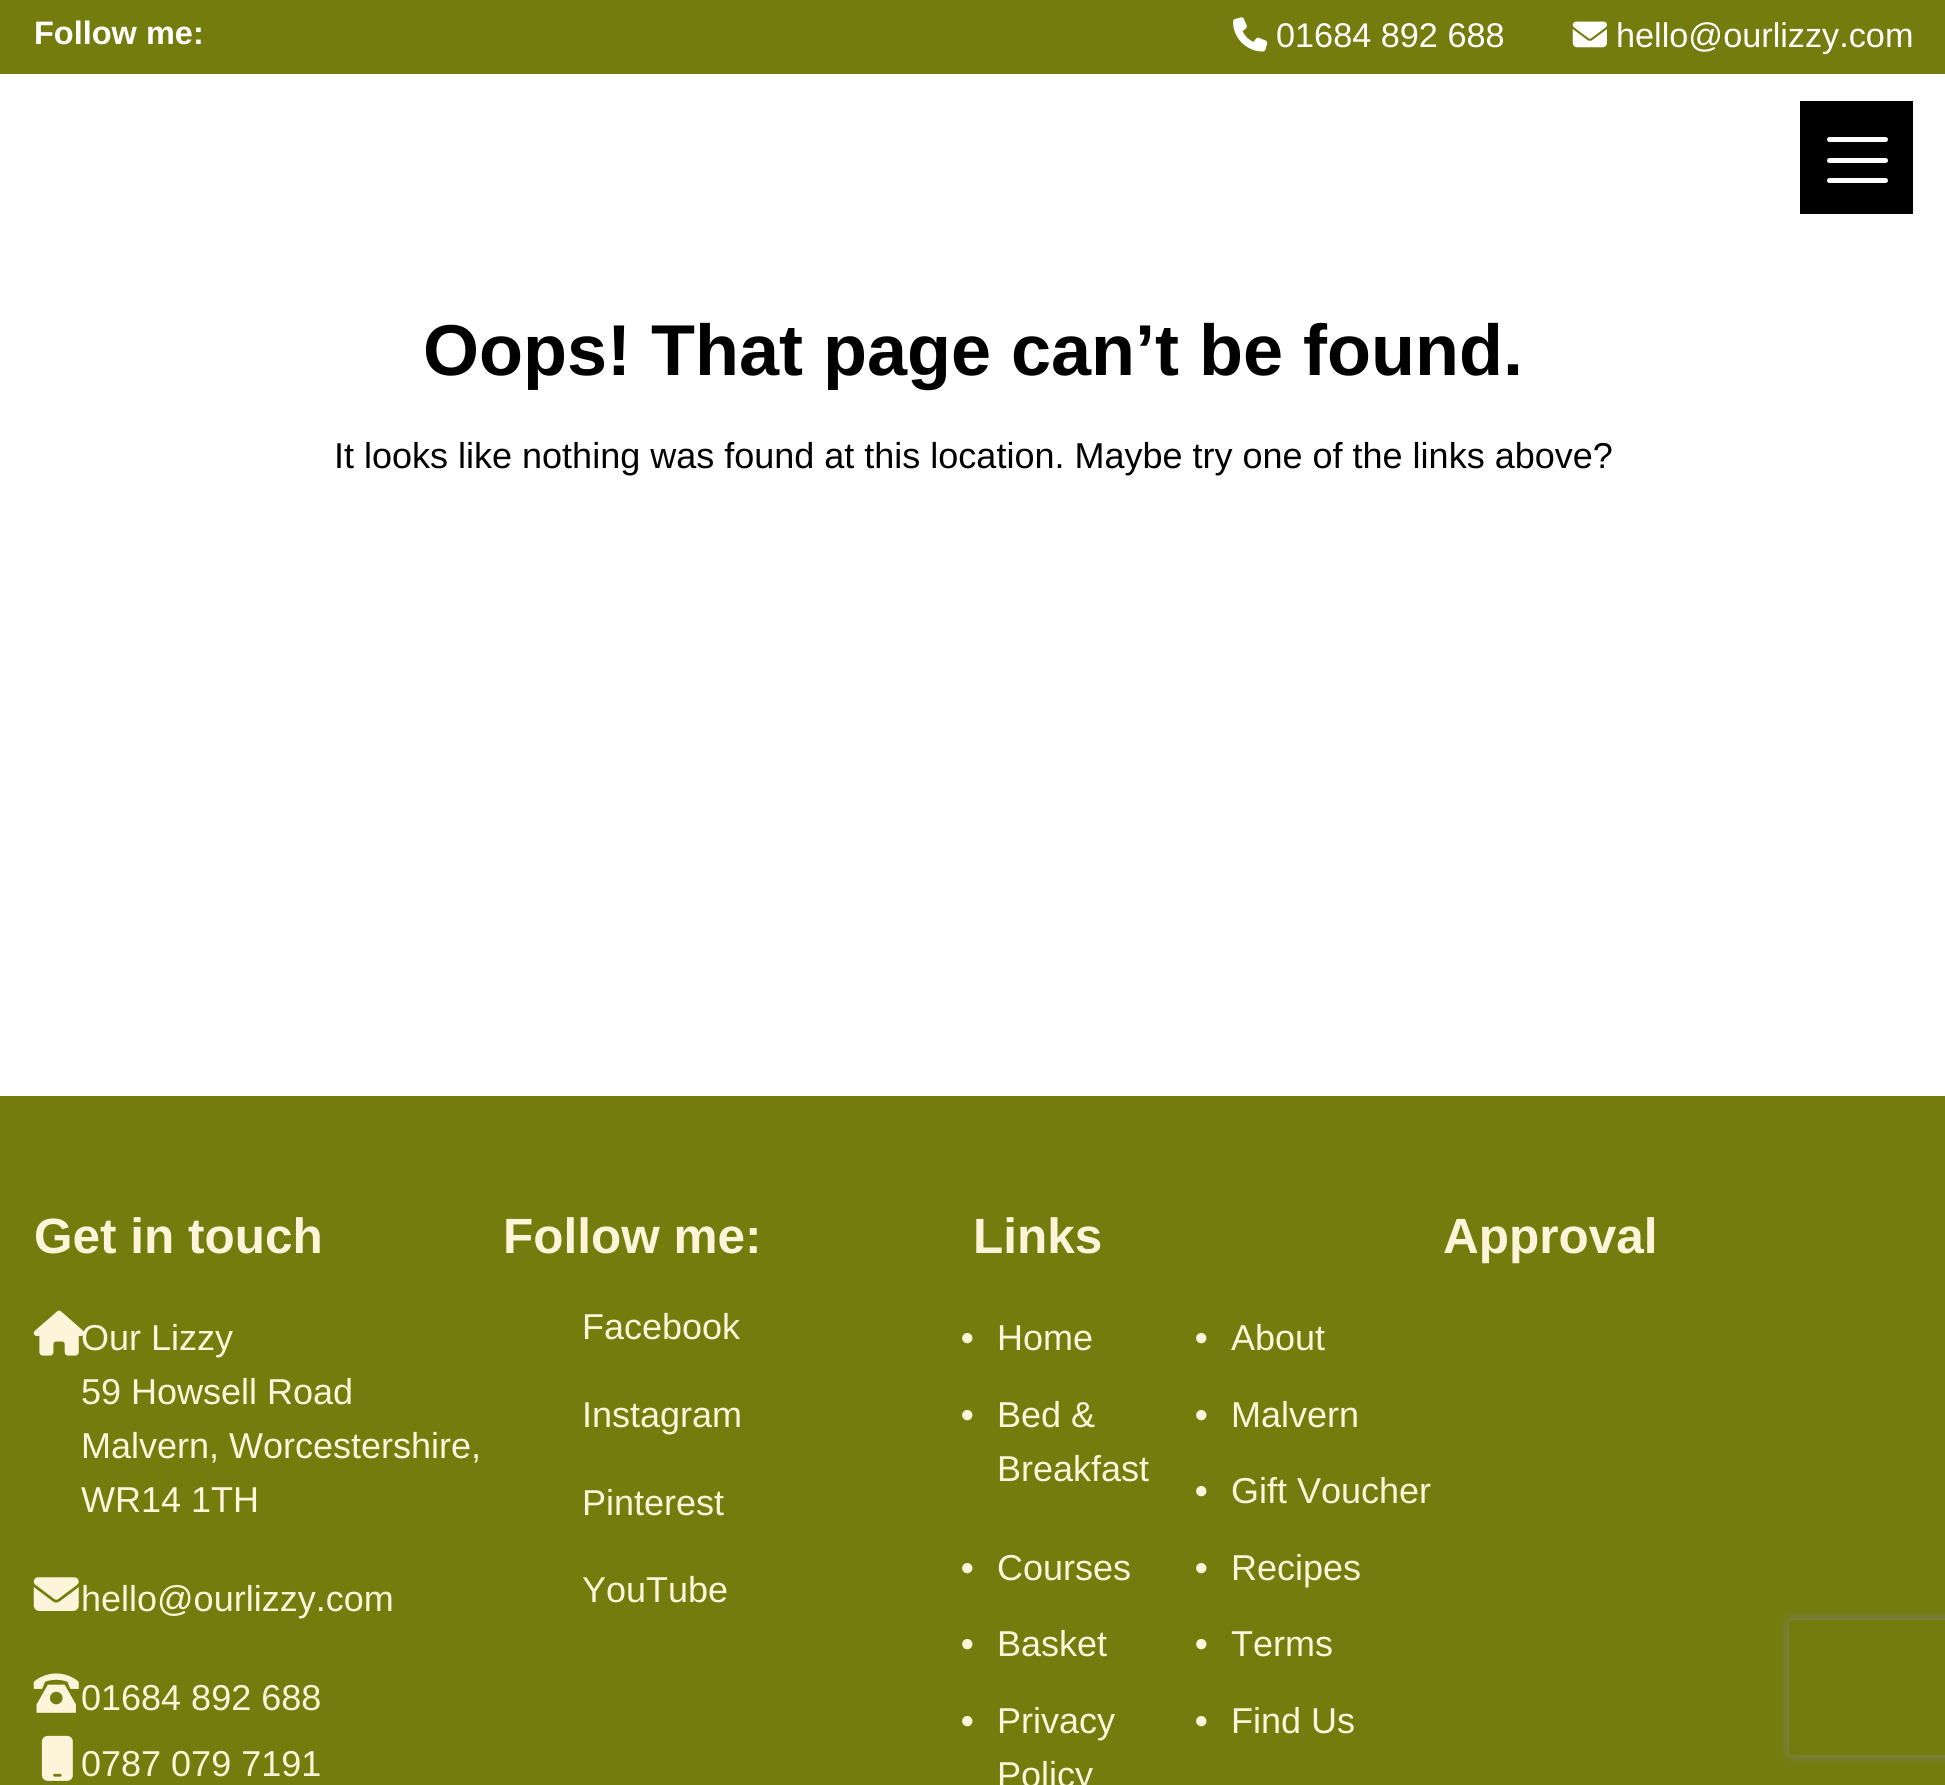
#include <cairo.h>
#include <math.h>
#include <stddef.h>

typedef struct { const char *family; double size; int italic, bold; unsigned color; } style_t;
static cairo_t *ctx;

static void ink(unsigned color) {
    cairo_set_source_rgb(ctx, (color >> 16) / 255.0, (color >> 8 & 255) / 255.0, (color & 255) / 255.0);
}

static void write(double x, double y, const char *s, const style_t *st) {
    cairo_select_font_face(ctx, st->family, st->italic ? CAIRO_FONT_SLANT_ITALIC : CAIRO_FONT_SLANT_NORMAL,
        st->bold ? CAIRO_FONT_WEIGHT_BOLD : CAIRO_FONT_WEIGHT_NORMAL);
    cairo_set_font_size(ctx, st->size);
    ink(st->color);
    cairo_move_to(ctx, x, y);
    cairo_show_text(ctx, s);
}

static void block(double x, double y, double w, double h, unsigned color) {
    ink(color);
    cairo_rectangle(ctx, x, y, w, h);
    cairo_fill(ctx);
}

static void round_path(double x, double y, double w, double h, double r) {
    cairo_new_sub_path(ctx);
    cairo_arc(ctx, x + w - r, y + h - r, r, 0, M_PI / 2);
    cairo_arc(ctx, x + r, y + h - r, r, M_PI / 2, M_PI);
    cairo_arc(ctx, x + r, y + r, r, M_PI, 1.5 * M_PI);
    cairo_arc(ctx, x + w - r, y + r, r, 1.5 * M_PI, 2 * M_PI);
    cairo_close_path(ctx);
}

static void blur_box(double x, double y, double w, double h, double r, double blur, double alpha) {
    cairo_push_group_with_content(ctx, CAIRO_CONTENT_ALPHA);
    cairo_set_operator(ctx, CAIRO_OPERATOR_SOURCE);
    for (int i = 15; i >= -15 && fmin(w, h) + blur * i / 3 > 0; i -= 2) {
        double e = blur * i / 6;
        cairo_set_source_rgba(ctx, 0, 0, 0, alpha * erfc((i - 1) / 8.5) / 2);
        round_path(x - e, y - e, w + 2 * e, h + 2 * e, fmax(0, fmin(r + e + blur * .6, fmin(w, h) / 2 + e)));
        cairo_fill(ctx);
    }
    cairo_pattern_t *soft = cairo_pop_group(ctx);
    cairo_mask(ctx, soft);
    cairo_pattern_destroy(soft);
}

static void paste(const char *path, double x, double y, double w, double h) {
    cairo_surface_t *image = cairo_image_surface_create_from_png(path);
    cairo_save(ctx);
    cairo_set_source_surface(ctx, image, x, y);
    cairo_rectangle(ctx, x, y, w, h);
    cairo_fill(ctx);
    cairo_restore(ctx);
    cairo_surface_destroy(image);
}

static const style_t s1 = {"Liberation Sans", 32.5, 0, 1, 0xffffff};
static const style_t s2 = {"Liberation Sans", 34.25, 0, 0, 0xffffff};
static const style_t s3 = {"Liberation Sans", 72, 0, 1, 0x000000};
static const style_t s4 = {"Liberation Sans", 36, 0, 0, 0x000000};
static const style_t s5 = {"Liberation Sans", 49.5, 0, 1, 0xfdf4da};
static const style_t s6 = {"Liberation Sans", 36, 0, 0, 0xfdf4da};
static const style_t s7 = {"Liberation Sans", 36, 0, 1, 0xfdf4da};

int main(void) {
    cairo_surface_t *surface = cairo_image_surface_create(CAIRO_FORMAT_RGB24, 1945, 1785);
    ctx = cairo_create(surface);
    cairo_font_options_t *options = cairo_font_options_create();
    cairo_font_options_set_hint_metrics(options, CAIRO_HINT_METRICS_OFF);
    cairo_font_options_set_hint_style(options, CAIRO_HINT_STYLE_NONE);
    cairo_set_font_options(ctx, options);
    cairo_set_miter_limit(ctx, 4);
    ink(0xffffff);
    cairo_paint(ctx);
    block(0, 0, 1945, 74, 0x737c0c);
    write(34, 44, "Follow me:", &s1);
    paste("pic1.png", 1233, 17, 35, 35);
    write(1276, 47, "01684 892 688", &s2);
    paste("pic2.png", 1572, 21, 35, 27);
    write(1616, 47, "hello@ourlizzy.com", &s2);
    write(423, 375, "Oops! That page can’t be found.", &s3);
    write(334, 468, "It looks like nothing was found at this location. Maybe try one of the links above?", &s4);
    block(0, 1096, 1945, 689, 0x737c0c);
    write(34, 1253, "Get in touch", &s5);
    paste("pic3.png", 33, 1310, 52, 46);
    write(81, 1350, "Our Lizzy", &s6);
    write(81, 1404, "59 Howsell Road", &s6);
    write(81, 1458, "Malvern, Worcestershire,", &s6);
    write(81, 1512, "WR14 1TH", &s6);
    paste("pic4.png", 33, 1577, 46, 34);
    write(81, 1611, "hello@ourlizzy.com", &s6);
    paste("pic5.png", 33, 1673, 46, 40);
    write(81, 1710, "01684 892 688", &s6);
    paste("pic6.png", 41, 1735, 32, 46);
    write(81, 1776, "0787 079 7191", &s6);
    write(503, 1253, "Follow me:", &s5);
    write(582, 1339, "Facebook", &s6);
    write(582, 1427, "Instagram", &s6);
    write(582, 1515, "Pinterest", &s6);
    write(582, 1602, "YouTube", &s6);
    write(973, 1253, "Links", &s5);
    write(961, 1350, "•", &s7);
    write(997, 1350, "Home", &s6);
    write(1195, 1350, "•", &s7);
    write(1231, 1350, "About", &s6);
    write(961, 1427, "•", &s7);
    write(997, 1427, "Bed &", &s6);
    write(997, 1481, "Breakfast", &s6);
    write(1195, 1427, "•", &s7);
    write(1231, 1427, "Malvern", &s6);
    write(1195, 1503, "•", &s7);
    write(1231, 1503, "Gift Voucher", &s6);
    write(961, 1580, "•", &s7);
    write(997, 1580, "Courses", &s6);
    write(1195, 1580, "•", &s7);
    write(1231, 1580, "Recipes", &s6);
    write(961, 1656, "•", &s7);
    write(997, 1656, "Basket", &s6);
    write(1195, 1656, "•", &s7);
    write(1231, 1656, "Terms", &s6);
    write(961, 1733, "•", &s7);
    write(997, 1733, "Privacy", &s6);
    write(997, 1787, "Policy", &s6);
    write(1195, 1733, "•", &s7);
    write(1231, 1733, "Find Us", &s6);
    write(1443, 1253, "Approval", &s5);
    block(1800, 101, 113, 113, 0x000000);
    ink(0xffffff);
    round_path(1827, 137, 61, 5, 2.5);
    cairo_fill(ctx);
    round_path(1827, 158, 61, 5, 2.5);
    cairo_fill(ctx);
    round_path(1827, 178, 61, 5, 2.5);
    cairo_fill(ctx);
    cairo_save(ctx);
    cairo_set_fill_rule(ctx, CAIRO_FILL_RULE_EVEN_ODD);
    cairo_new_path(ctx);
    cairo_move_to(ctx, 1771, 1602);
    cairo_line_to(ctx, 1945, 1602);
    cairo_line_to(ctx, 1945, 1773);
    cairo_line_to(ctx, 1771, 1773);
    cairo_close_path(ctx);
    cairo_move_to(ctx, 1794, 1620);
    cairo_line_to(ctx, 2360, 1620);
    cairo_curve_to(ctx, 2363, 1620, 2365, 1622, 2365, 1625);
    cairo_line_to(ctx, 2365, 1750);
    cairo_curve_to(ctx, 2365, 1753, 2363, 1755, 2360, 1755);
    cairo_line_to(ctx, 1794, 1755);
    cairo_curve_to(ctx, 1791, 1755, 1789, 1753, 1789, 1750);
    cairo_line_to(ctx, 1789, 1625);
    cairo_curve_to(ctx, 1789, 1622, 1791, 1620, 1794, 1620);
    cairo_close_path(ctx);
    cairo_clip(ctx);
    ink(0x808080);
    blur_box(1789, 1620, 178, 135, 5, 5.5, 1);
    cairo_restore(ctx);
    cairo_surface_write_to_png(surface, "screenshot.png");
    cairo_font_options_destroy(options);
    cairo_destroy(ctx);
    cairo_surface_destroy(surface);
    return 0;
}
